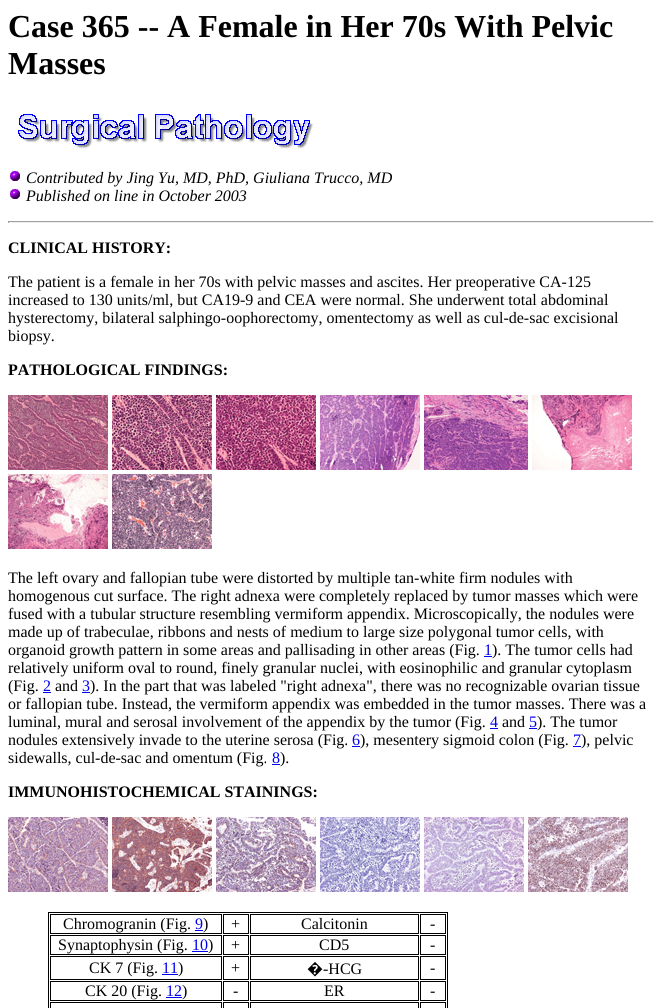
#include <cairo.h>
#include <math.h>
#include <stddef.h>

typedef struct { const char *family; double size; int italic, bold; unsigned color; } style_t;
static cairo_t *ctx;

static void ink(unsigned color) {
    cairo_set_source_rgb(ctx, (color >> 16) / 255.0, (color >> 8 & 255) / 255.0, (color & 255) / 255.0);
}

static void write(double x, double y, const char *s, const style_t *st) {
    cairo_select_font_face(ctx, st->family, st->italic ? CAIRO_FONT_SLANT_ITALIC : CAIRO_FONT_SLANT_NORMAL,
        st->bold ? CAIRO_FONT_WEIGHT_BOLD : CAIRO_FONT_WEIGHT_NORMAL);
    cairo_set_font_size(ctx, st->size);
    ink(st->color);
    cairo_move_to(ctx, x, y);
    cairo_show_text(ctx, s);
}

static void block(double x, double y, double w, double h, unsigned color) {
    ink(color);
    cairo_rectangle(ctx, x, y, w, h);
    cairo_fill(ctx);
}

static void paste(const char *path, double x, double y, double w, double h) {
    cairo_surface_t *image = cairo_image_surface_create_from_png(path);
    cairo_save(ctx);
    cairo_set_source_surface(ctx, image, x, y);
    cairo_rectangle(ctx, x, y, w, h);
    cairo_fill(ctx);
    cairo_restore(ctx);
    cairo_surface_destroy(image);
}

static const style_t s1 = {"Liberation Serif", 32, 0, 1, 0x000000};
static const style_t s2 = {"Liberation Serif", 16, 1, 0, 0x000000};
static const style_t s3 = {"Liberation Serif", 16, 0, 1, 0x000000};
static const style_t s4 = {"Liberation Serif", 16, 0, 0, 0x000000};
static const style_t s5 = {"Liberation Serif", 16, 0, 0, 0x0000ee};
static const style_t s6 = {"Noto Sans", 16, 0, 0, 0x000000};

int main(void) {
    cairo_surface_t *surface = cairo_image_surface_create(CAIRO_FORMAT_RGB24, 662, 1008);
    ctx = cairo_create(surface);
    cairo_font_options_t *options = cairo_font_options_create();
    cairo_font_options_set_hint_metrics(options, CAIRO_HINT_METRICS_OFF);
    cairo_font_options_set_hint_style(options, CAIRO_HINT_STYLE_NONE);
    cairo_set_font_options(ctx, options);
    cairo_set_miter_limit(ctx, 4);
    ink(0xffffff);
    cairo_paint(ctx);
    write(8, 37, "Case 365 -- A Female in Her 70s With Pelvic", &s1);
    write(8, 74, "Masses", &s1);
    paste("pic1.png", 18, 114, 296, 35);
    paste("pic2.png", 10, 171, 10, 10);
    write(26, 183, "Contributed by Jing Yu, MD, PhD, Giuliana Trucco, MD", &s2);
    paste("pic2.png", 10, 189, 10, 10);
    write(26, 201, "Published on line in October 2003", &s2);
    block(8, 221, 646, 1, 0x9f9f9f);
    block(653, 221, 1, 2, 0xeeeeee);
    block(8, 222, 646, 1, 0xeeeeee);
    block(8, 221, 1, 2, 0x9f9f9f);
    write(8, 253, "CLINICAL HISTORY:", &s3);
    write(8, 287, "The patient is a female in her 70s with pelvic masses and ascites. Her preoperative CA-125", &s4);
    write(8, 305, "increased to 130 units/ml, but CA19-9 and CEA were normal. She underwent total abdominal", &s4);
    write(8, 323, "hysterectomy, bilateral salphingo-oophorectomy, omentectomy as well as cul-de-sac excisional", &s4);
    write(8, 341, "biopsy.", &s4);
    write(8, 375, "PATHOLOGICAL FINDINGS:", &s3);
    paste("pic3.png", 8, 395, 100, 75);
    paste("pic4.png", 112, 395, 100, 75);
    paste("pic5.png", 216, 395, 100, 75);
    paste("pic6.png", 320, 395, 100, 75);
    paste("pic7.png", 424, 395, 104, 75);
    paste("pic8.png", 532, 395, 100, 75);
    paste("pic9.png", 8, 474, 100, 75);
    paste("pic10.png", 112, 474, 100, 75);
    write(8, 583, "The left ovary and fallopian tube were distorted by multiple tan-white firm nodules with", &s4);
    write(8, 601, "homogenous cut surface. The right adnexa were completely replaced by tumor masses which were", &s4);
    write(8, 619, "fused with a tubular structure resembling vermiform appendix. Microscopically, the nodules were", &s4);
    write(8, 637, "made up of trabeculae, ribbons and nests of medium to large size polygonal tumor cells, with", &s4);
    write(8, 655, "organoid growth pattern in some areas and pallisading in other areas (Fig.", &s4);
    write(484, 655, "1", &s5);
    block(484, 656, 8, 1, 0x0000ee);
    write(492, 655, "). The tumor cells had", &s4);
    write(8, 673, "relatively uniform oval to round, finely granular nuclei, with eosinophilic and granular cytoplasm", &s4);
    write(8, 691, "(Fig.", &s4);
    write(43, 691, "2", &s5);
    block(43, 692, 8, 1, 0x0000ee);
    write(55, 691, "and", &s4);
    write(82, 691, "3", &s5);
    block(82, 692, 8, 1, 0x0000ee);
    write(90, 691, "). In the part that was labeled \"right adnexa\", there was no recognizable ovarian tissue", &s4);
    write(8, 709, "or fallopian tube. Instead, the vermiform appendix was embedded in the tumor masses. There was a", &s4);
    write(8, 727, "luminal, mural and serosal involvement of the appendix by the tumor (Fig.", &s4);
    write(490, 727, "4", &s5);
    block(490, 728, 8, 1, 0x0000ee);
    write(502, 727, "and", &s4);
    write(529, 727, "5", &s5);
    block(529, 728, 8, 1, 0x0000ee);
    write(537, 727, "). The tumor", &s4);
    write(8, 745, "nodules extensively invade to the uterine serosa (Fig.", &s4);
    write(352, 745, "6", &s5);
    block(352, 746, 8, 1, 0x0000ee);
    write(360, 745, "), mesentery sigmoid colon (Fig.", &s4);
    write(573, 745, "7", &s5);
    block(573, 746, 8, 1, 0x0000ee);
    write(581, 745, "), pelvic", &s4);
    write(8, 763, "sidewalls, cul-de-sac and omentum (Fig.", &s4);
    write(272, 763, "8", &s5);
    block(272, 764, 8, 1, 0x0000ee);
    write(280, 763, ").", &s4);
    write(8, 797, "IMMUNOHISTOCHEMICAL STAININGS:", &s3);
    paste("pic11.png", 8, 817, 100, 75);
    paste("pic12.png", 112, 817, 100, 75);
    paste("pic13.png", 216, 817, 100, 75);
    paste("pic14.png", 320, 817, 100, 75);
    paste("pic15.png", 424, 817, 100, 75);
    paste("pic16.png", 528, 817, 100, 75);
    cairo_rectangle(ctx, 48.5, 912.5, 399, 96);
    cairo_set_line_width(ctx, 1);
    cairo_stroke(ctx);
    cairo_rectangle(ctx, 50.5, 914.5, 171, 19);
    cairo_stroke(ctx);
    write(63, 929, "Chromogranin (Fig.", &s4);
    write(195, 929, "9", &s5);
    block(195, 930, 8, 1, 0x0000ee);
    write(203, 929, ")", &s4);
    cairo_rectangle(ctx, 223.5, 914.5, 25, 19);
    cairo_stroke(ctx);
    write(231, 929, "+", &s4);
    cairo_rectangle(ctx, 250.5, 914.5, 168, 19);
    cairo_stroke(ctx);
    write(301, 929, "Calcitonin", &s4);
    cairo_rectangle(ctx, 420.5, 914.5, 25, 19);
    cairo_stroke(ctx);
    write(430, 929, "-", &s4);
    cairo_rectangle(ctx, 50.5, 935.5, 171, 19);
    cairo_stroke(ctx);
    write(58, 950, "Synaptophysin (Fig.", &s4);
    write(192, 950, "10", &s5);
    block(192, 951, 16, 1, 0x0000ee);
    write(208, 950, ")", &s4);
    cairo_rectangle(ctx, 223.5, 935.5, 25, 19);
    cairo_stroke(ctx);
    write(231, 950, "+", &s4);
    cairo_rectangle(ctx, 250.5, 935.5, 168, 19);
    cairo_stroke(ctx);
    write(319, 950, "CD5", &s4);
    cairo_rectangle(ctx, 420.5, 935.5, 25, 19);
    cairo_stroke(ctx);
    write(430, 950, "-", &s4);
    cairo_rectangle(ctx, 50.5, 956.5, 171, 23);
    cairo_stroke(ctx);
    write(89, 973, "CK 7 (Fig.", &s4);
    write(162, 973, "11", &s5);
    block(162, 974, 16, 1, 0x0000ee);
    write(178, 973, ")", &s4);
    cairo_rectangle(ctx, 223.5, 956.5, 25, 23);
    cairo_stroke(ctx);
    write(231, 973, "+", &s4);
    cairo_rectangle(ctx, 250.5, 956.5, 168, 23);
    cairo_stroke(ctx);
    write(307, 974, "�", &s6);
    write(323, 974, "-HCG", &s4);
    cairo_rectangle(ctx, 420.5, 956.5, 25, 23);
    cairo_stroke(ctx);
    write(430, 973, "-", &s4);
    cairo_rectangle(ctx, 50.5, 981.5, 171, 19);
    cairo_stroke(ctx);
    write(85, 996, "CK 20 (Fig.", &s4);
    write(166, 996, "12", &s5);
    block(166, 997, 16, 1, 0x0000ee);
    write(182, 996, ")", &s4);
    cairo_rectangle(ctx, 223.5, 981.5, 25, 19);
    cairo_stroke(ctx);
    write(233, 996, "-", &s4);
    cairo_rectangle(ctx, 250.5, 981.5, 168, 19);
    cairo_stroke(ctx);
    write(324, 996, "ER", &s4);
    cairo_rectangle(ctx, 420.5, 981.5, 25, 19);
    cairo_stroke(ctx);
    write(430, 996, "-", &s4);
    cairo_rectangle(ctx, 50.5, 1002.5, 171, 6);
    cairo_stroke(ctx);
    cairo_rectangle(ctx, 223.5, 1002.5, 25, 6);
    cairo_stroke(ctx);
    cairo_rectangle(ctx, 250.5, 1002.5, 168, 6);
    cairo_stroke(ctx);
    cairo_rectangle(ctx, 420.5, 1002.5, 25, 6);
    cairo_stroke(ctx);
    cairo_surface_write_to_png(surface, "screenshot.png");
    cairo_font_options_destroy(options);
    cairo_destroy(ctx);
    cairo_surface_destroy(surface);
    return 0;
}
